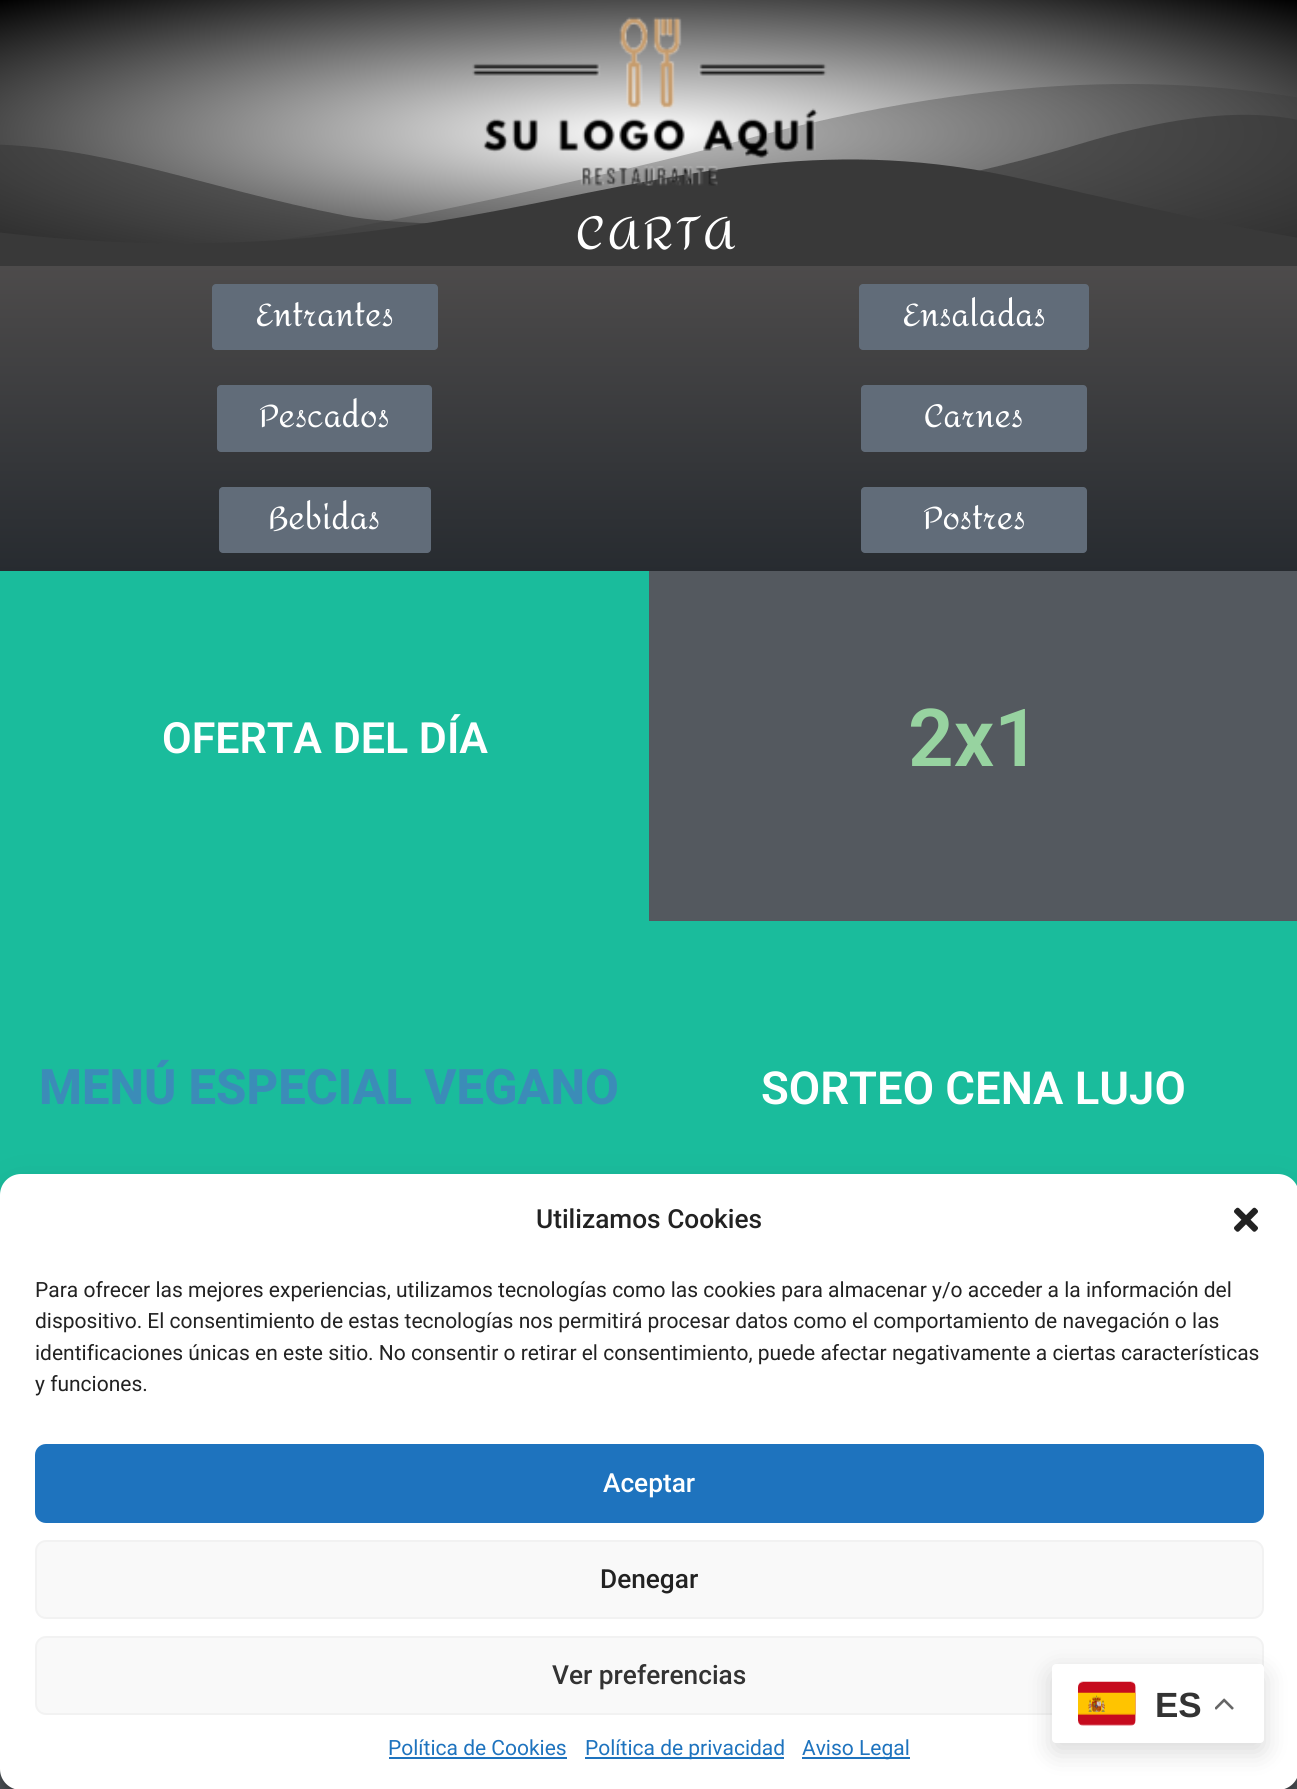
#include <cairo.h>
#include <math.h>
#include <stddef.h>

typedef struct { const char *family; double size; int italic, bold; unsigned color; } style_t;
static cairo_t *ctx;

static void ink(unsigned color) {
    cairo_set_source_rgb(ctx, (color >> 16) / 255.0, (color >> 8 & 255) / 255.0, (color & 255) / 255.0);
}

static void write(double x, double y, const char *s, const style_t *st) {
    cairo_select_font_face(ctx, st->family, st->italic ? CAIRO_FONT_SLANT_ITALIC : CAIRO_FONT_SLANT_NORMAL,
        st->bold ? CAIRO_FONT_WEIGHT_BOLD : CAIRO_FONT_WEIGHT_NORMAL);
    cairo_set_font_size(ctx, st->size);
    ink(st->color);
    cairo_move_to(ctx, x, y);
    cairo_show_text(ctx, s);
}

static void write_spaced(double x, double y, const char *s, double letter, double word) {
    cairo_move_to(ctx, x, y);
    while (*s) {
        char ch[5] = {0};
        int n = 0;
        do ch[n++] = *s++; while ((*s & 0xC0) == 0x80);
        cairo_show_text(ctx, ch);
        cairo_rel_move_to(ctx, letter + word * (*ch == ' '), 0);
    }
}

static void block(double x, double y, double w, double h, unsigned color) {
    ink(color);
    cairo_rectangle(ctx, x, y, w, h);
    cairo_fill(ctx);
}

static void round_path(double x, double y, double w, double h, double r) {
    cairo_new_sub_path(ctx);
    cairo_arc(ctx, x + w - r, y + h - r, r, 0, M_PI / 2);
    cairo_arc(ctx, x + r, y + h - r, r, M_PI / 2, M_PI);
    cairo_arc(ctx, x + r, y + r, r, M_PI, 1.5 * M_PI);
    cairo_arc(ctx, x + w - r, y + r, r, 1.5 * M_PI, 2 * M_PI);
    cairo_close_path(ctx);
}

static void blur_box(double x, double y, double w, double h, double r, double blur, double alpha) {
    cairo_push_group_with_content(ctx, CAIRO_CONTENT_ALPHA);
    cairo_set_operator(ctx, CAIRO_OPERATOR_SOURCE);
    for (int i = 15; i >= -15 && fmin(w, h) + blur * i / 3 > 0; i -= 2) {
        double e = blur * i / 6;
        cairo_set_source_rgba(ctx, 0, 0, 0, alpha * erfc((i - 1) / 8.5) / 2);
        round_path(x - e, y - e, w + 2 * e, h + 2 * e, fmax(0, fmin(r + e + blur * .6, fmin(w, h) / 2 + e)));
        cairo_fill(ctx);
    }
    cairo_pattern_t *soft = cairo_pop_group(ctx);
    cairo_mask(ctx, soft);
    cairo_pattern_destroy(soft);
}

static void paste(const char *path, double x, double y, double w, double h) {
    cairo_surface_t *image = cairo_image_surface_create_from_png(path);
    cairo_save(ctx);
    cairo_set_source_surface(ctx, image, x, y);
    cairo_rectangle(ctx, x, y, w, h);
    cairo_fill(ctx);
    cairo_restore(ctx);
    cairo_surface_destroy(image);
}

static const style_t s1 = {"Amita", 31.5, 0, 0, 0xffffff};
static const style_t s2 = {"Roboto SemiBold", 43, 0, 0, 0xffffff};
static const style_t s3 = {"Roboto SemiBold", 80, 0, 0, 0x97d3a0};
static const style_t s4 = {"Roboto ExtraBold", 49, 0, 0, 0x3b8cb8};
static const style_t s5 = {"Roboto SemiBold", 45.5, 0, 0, 0xffffff};
static const style_t s6 = {"Roboto Medium", 26.25, 0, 0, 0x222222};
static const style_t s7 = {"Roboto", 21, 0, 0, 0x222222};
static const style_t s8 = {"Roboto Medium", 26.25, 0, 0, 0xffffff};
static const style_t s9 = {"Roboto Medium", 26.25, 0, 0, 0x333333};
static const style_t s10 = {"Roboto", 21, 0, 0, 0x1e73be};
static const style_t s11 = {"Liberation Sans", 35, 0, 1, 0x333333};

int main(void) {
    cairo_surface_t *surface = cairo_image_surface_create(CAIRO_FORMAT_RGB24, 1297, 1789);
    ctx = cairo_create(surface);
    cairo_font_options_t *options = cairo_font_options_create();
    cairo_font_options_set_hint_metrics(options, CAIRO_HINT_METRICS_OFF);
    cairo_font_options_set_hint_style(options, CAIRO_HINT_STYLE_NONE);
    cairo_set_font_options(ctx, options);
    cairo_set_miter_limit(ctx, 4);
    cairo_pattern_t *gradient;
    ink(0xffffff);
    cairo_paint(ctx);
    gradient = cairo_pattern_create_radial(0, 0, 0, 0, 0, 1);
    cairo_pattern_set_matrix(gradient, &(cairo_matrix_t){1.0 / 918, 0, 0, 1.0 / 188, -1.0 * 649 / 918, -1.0 * 133 / 188});
    cairo_pattern_add_color_stop_rgba(gradient, 0, 1, 1, 1, 1);
    cairo_pattern_add_color_stop_rgba(gradient, 1, 0, 0, 0, 1);
    cairo_set_source(ctx, gradient);
    cairo_pattern_destroy(gradient);
    cairo_rectangle(ctx, 0, 0, 1297, 244);
    cairo_fill(ctx);
    paste("pic1.png", 0, 84, 1297, 182);
    paste("pic2.png", 472, 17, 355, 169);
    cairo_select_font_face(ctx, "Amita", CAIRO_FONT_SLANT_NORMAL, CAIRO_FONT_WEIGHT_NORMAL);
    cairo_set_font_size(ctx, 45.5);
    ink(0xffffff);
    write_spaced(576, 249, "CARTA", 4, 0);
    gradient = cairo_pattern_create_linear(649, 266, 649, 571);
    cairo_pattern_add_color_stop_rgba(gradient, 0, 0.302, 0.294, 0.294, 1);
    cairo_pattern_add_color_stop_rgba(gradient, 1, 0.153, 0.169, 0.188, 1);
    cairo_set_source(ctx, gradient);
    cairo_pattern_destroy(gradient);
    cairo_rectangle(ctx, 0, 266, 1297, 305);
    cairo_fill(ctx);
    ink(0x616c79);
    round_path(212, 284, 226, 66, 4);
    cairo_fill(ctx);
    write(256, 326, "Entrantes", &s1);
    ink(0x616c79);
    round_path(859, 284, 230, 66, 4);
    cairo_fill(ctx);
    write(903, 326, "Ensaladas", &s1);
    ink(0x616c79);
    round_path(217, 385, 215, 67, 4);
    cairo_fill(ctx);
    write(259, 427, "Pescados", &s1);
    ink(0x616c79);
    round_path(861, 385, 226, 67, 4);
    cairo_fill(ctx);
    write(924, 427, "Carnes", &s1);
    ink(0x616c79);
    round_path(219, 487, 212, 66, 4);
    cairo_fill(ctx);
    write(268, 529, "Bebidas", &s1);
    ink(0x616c79);
    round_path(861, 487, 226, 66, 4);
    cairo_fill(ctx);
    write(923, 529, "Postres", &s1);
    block(0, 571, 649, 624, 0x1abc9c);
    write(162, 753, "OFERTA DEL DÍA", &s2);
    block(649, 571, 648, 350, 0x54595f);
    write(908, 766, "2x1", &s3);
    write(39, 1104, "MENÚ ESPECIAL VEGANO", &s4);
    block(649, 921, 648, 265, 0x1abc9c);
    write(761, 1104, "SORTEO CENA LUJO", &s5);
    block(0, 1769, 1297, 20, 0x54595f);
    ink(0x000000);
    blur_box(0, 1185, 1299, 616, 21, 5, 0.23);
    blur_box(0, 1192, 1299, 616, 21, 17.5, 0.19);
    ink(0xffffff);
    round_path(0, 1174, 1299, 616, 21);
    cairo_fill(ctx);
    write(536, 1228, "Utilizamos Cookies", &s6);
    paste("pic3.png", 1234, 1207, 24, 25);
    write(35, 1297, "Para ofrecer las mejores experiencias, utilizamos tecnologías como las cookies para almacenar y/o acceder a la información del", &s7);
    write(35, 1328, "dispositivo. El consentimiento de estas tecnologías nos permitirá procesar datos como el comportamiento de navegación o las", &s7);
    write(35, 1360, "identificaciones únicas en este sitio. No consentir o retirar el consentimiento, puede afectar negativamente a ciertas características", &s7);
    write(35, 1391, "y funciones.", &s7);
    ink(0x1e73be);
    round_path(36, 1445, 1227, 77, 10);
    cairo_fill_preserve(ctx);
    cairo_stroke(ctx);
    write(603, 1492, "Aceptar", &s8);
    ink(0xf9f9f9);
    round_path(36, 1541, 1227, 77, 10);
    cairo_fill_preserve(ctx);
    ink(0xf2f2f2);
    cairo_stroke(ctx);
    write(600, 1588, "Denegar", &s6);
    ink(0xf9f9f9);
    round_path(36, 1637, 1227, 77, 10);
    cairo_fill_preserve(ctx);
    ink(0xf2f2f2);
    cairo_stroke(ctx);
    write(552, 1684, "Ver preferencias", &s9);
    write(388, 1755, "Política de Cookies", &s10);
    block(389, 1757, 178, 2, 0x1e73be);
    block(585, 1757, 199, 2, 0x1e73be);
    write(585, 1755, "Política de privacidad", &s10);
    block(802, 1757, 108, 2, 0x1e73be);
    write(802, 1755, "Aviso Legal", &s10);
    ink(0x000000);
    blur_box(1052, 1673, 212, 79, 4, 13, 0.15);
    ink(0xffffff);
    round_path(1052, 1664, 212, 79, 4);
    cairo_fill(ctx);
    paste("pic4.png", 1078, 1681, 58, 45);
    write(1155, 1717, "ES", &s11);
    paste("pic5.png", 1215, 1698, 19, 12);
    cairo_surface_write_to_png(surface, "screenshot.png");
    cairo_font_options_destroy(options);
    cairo_destroy(ctx);
    cairo_surface_destroy(surface);
    return 0;
}
